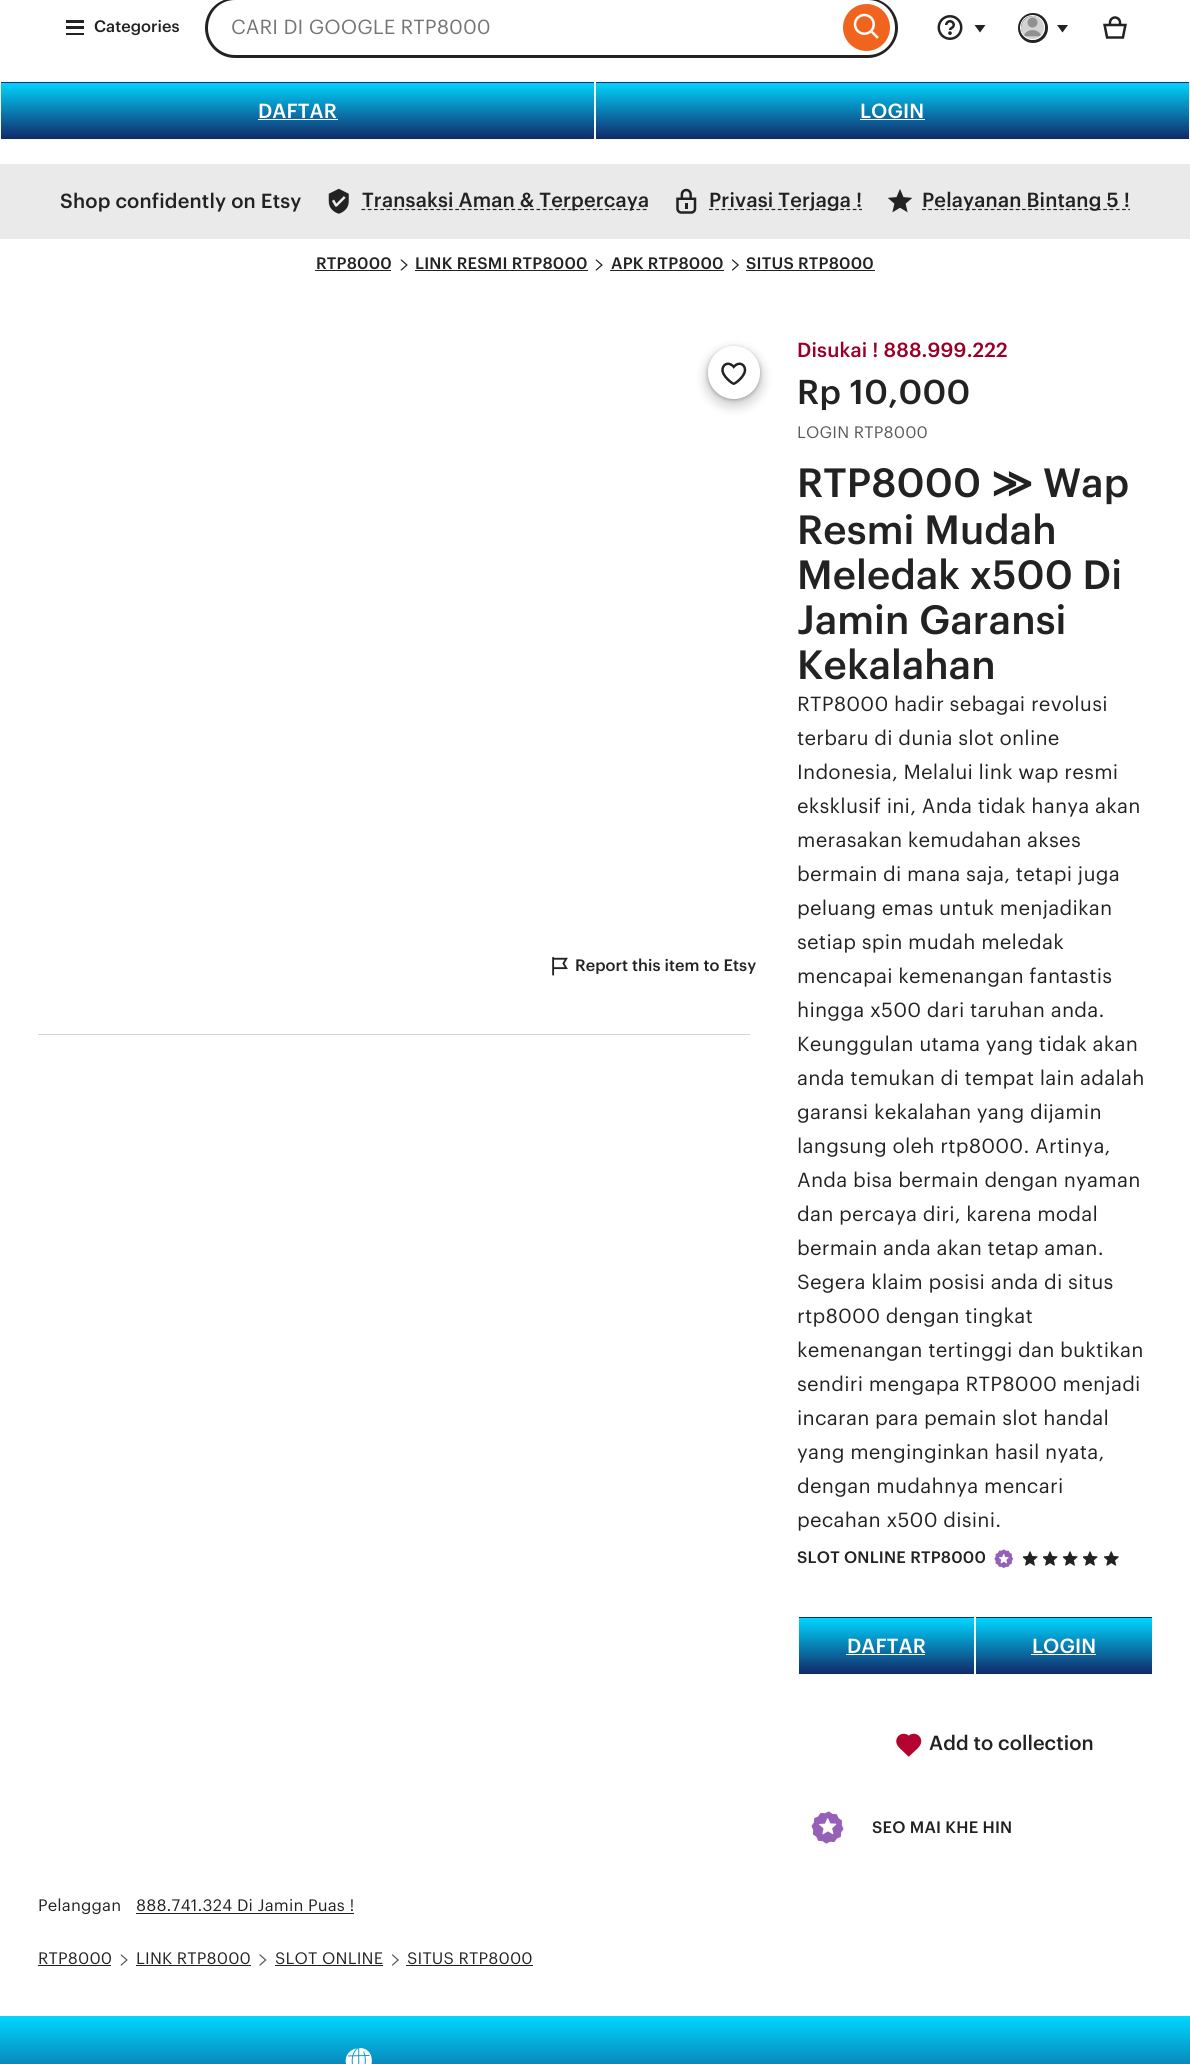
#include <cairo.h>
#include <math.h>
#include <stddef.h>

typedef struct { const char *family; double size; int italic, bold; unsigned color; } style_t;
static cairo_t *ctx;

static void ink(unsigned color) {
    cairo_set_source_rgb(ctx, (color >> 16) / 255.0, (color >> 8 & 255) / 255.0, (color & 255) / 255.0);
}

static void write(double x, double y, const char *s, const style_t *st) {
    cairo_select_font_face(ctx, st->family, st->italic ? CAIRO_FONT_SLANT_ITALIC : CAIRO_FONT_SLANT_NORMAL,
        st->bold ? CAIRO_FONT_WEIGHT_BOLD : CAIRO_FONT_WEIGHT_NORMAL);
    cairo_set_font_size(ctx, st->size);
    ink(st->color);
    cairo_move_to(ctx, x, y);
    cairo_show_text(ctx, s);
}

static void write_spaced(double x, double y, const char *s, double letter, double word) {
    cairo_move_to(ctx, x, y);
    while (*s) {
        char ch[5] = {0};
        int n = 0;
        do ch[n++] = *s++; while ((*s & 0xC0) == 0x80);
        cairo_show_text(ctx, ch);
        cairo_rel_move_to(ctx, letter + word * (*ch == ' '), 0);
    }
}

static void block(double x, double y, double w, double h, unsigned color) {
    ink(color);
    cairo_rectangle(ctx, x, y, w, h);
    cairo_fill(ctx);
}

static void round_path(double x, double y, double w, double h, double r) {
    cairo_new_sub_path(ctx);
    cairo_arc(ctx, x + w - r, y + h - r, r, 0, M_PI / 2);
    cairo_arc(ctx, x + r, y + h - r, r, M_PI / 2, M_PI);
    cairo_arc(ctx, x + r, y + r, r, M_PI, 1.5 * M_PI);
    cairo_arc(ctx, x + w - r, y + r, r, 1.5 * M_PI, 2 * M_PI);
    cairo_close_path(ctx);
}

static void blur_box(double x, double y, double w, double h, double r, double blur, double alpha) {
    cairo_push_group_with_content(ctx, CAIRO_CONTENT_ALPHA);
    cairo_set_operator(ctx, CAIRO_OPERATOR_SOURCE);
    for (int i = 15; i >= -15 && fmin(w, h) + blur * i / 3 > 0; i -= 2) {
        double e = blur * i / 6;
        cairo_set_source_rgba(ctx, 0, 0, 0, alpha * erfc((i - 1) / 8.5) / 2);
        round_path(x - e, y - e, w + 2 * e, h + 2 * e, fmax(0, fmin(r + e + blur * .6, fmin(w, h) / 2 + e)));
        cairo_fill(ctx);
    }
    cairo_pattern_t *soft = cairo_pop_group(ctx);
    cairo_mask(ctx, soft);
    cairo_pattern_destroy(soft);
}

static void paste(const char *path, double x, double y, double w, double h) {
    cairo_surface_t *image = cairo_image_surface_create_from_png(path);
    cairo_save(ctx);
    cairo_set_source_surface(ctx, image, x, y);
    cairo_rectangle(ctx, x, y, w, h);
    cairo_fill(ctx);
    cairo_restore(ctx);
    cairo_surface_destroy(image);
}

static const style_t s1 = {"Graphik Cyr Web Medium", 16.25, 0, 0, 0x222222};
static const style_t s2 = {"Graphik Cyr Web", 20, 0, 0, 0x757575};
static const style_t s3 = {"Graphik Cyr Web Medium", 20, 0, 0, 0xffffff};
static const style_t s4 = {"Graphik Cyr Web Medium", 40, 0, 0, 0x222222};
static const style_t s5 = {"DejaVu Sans", 40, 0, 1, 0x222222};
static const style_t s6 = {"Graphik Cyr Web Medium", 20, 0, 0, 0x222222};

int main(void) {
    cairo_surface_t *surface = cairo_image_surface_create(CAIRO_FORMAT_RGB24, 1190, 2064);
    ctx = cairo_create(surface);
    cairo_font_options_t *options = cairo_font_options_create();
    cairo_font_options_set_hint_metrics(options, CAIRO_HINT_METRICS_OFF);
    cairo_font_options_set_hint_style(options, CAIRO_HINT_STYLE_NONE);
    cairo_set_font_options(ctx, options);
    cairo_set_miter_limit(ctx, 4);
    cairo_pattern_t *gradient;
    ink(0xffffff);
    cairo_paint(ctx);
    block(66, 26, 18, 3, 0x222222);
    block(66, 33, 18, 2, 0x222222);
    block(66, 20, 18, 3, 0x222222);
    write(94, 32, "Categories", &s1);
    cairo_set_fill_rule(ctx, CAIRO_FILL_RULE_EVEN_ODD);
    cairo_new_path(ctx);
    cairo_move_to(ctx, 235, -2);
    cairo_line_to(ctx, 836, -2);
    cairo_line_to(ctx, 836, 58);
    cairo_line_to(ctx, 235, 58);
    cairo_curve_to(ctx, 218, 58, 205, 44, 205, 28);
    cairo_curve_to(ctx, 205, 11, 218, -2, 235, -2);
    cairo_close_path(ctx);
    cairo_move_to(ctx, 235, 0);
    cairo_line_to(ctx, 836, 0);
    cairo_line_to(ctx, 836, 55);
    cairo_line_to(ctx, 235, 55);
    cairo_curve_to(ctx, 220, 55, 208, 43, 208, 28);
    cairo_curve_to(ctx, 208, 12, 220, 0, 235, 0);
    cairo_close_path(ctx);
    cairo_fill(ctx);
    write(231, 34, "CARI DI GOOGLE RTP8000", &s2);
    ink(0x222222);
    cairo_new_path(ctx);
    cairo_move_to(ctx, 836, -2);
    cairo_line_to(ctx, 868, -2);
    cairo_curve_to(ctx, 884, -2, 898, 11, 898, 28);
    cairo_curve_to(ctx, 898, 44, 884, 58, 868, 58);
    cairo_line_to(ctx, 836, 58);
    cairo_close_path(ctx);
    cairo_move_to(ctx, 836, 0);
    cairo_line_to(ctx, 868, 0);
    cairo_curve_to(ctx, 883, 0, 895, 12, 895, 28);
    cairo_curve_to(ctx, 895, 43, 883, 55, 868, 55);
    cairo_line_to(ctx, 836, 55);
    cairo_close_path(ctx);
    cairo_fill(ctx);
    ink(0xf1641e);
    cairo_arc(ctx, 866.5, 27.5, 23.5, 0, 2 * M_PI);
    cairo_fill(ctx);
    paste("pic1.png", 853, 13, 26, 26);
    paste("pic2.png", 937, 15, 26, 25);
    ink(0x222222);
    cairo_set_fill_rule(ctx, CAIRO_FILL_RULE_WINDING);
    cairo_new_path(ctx);
    cairo_move_to(ctx, 985.5, 25);
    cairo_line_to(ctx, 980, 32.5);
    cairo_line_to(ctx, 974.5, 25);
    cairo_close_path(ctx);
    cairo_fill(ctx);
    paste("pic3.png", 1018, 13, 30, 30);
    cairo_arc(ctx, 1033, 28, 13.5, 0, 2 * M_PI);
    cairo_set_line_width(ctx, 3);
    cairo_stroke(ctx);
    cairo_arc(ctx, 1032.5, 27.5, 12, 0, 2 * M_PI);
    ink(0xffffff);
    cairo_set_line_width(ctx, 1);
    cairo_stroke(ctx);
    ink(0x222222);
    cairo_new_path(ctx);
    cairo_move_to(ctx, 1068, 25);
    cairo_line_to(ctx, 1062.5, 32.5);
    cairo_line_to(ctx, 1057, 25);
    cairo_close_path(ctx);
    cairo_fill(ctx);
    paste("pic4.png", 1103, 16, 24, 23);
    gradient = cairo_pattern_create_linear(298, 26, 298, 83);
    cairo_pattern_add_color_stop_rgba(gradient, 0, 0, 0.843, 1, 1);
    cairo_pattern_add_color_stop_rgba(gradient, 1, 0.071, 0.157, 0.408, 1);
    cairo_set_source(ctx, gradient);
    cairo_pattern_destroy(gradient);
    cairo_rectangle(ctx, 0, 82, 595, 1);
    cairo_fill(ctx);
    gradient = cairo_pattern_create_linear(298, 82, 298, 139);
    cairo_pattern_add_color_stop_rgba(gradient, 0, 0, 0.843, 1, 1);
    cairo_pattern_add_color_stop_rgba(gradient, 1, 0.071, 0.157, 0.408, 1);
    cairo_set_source(ctx, gradient);
    cairo_pattern_destroy(gradient);
    cairo_rectangle(ctx, 1, 83, 593, 56);
    cairo_fill(ctx);
    cairo_rectangle(ctx, 0.5, 81.5, 594, 58);
    ink(0xf4feff);
    cairo_stroke(ctx);
    write(258, 118, "DAFTAR", &s3);
    block(258, 119, 80, 1, 0xffffff);
    gradient = cairo_pattern_create_linear(893, 26, 893, 83);
    cairo_pattern_add_color_stop_rgba(gradient, 0, 0, 0.843, 1, 1);
    cairo_pattern_add_color_stop_rgba(gradient, 1, 0.071, 0.157, 0.408, 1);
    cairo_set_source(ctx, gradient);
    cairo_pattern_destroy(gradient);
    cairo_rectangle(ctx, 595, 82, 595, 1);
    cairo_fill(ctx);
    gradient = cairo_pattern_create_linear(893, 82, 893, 139);
    cairo_pattern_add_color_stop_rgba(gradient, 0, 0, 0.843, 1, 1);
    cairo_pattern_add_color_stop_rgba(gradient, 1, 0.071, 0.157, 0.408, 1);
    cairo_set_source(ctx, gradient);
    cairo_pattern_destroy(gradient);
    cairo_rectangle(ctx, 596, 83, 593, 56);
    cairo_fill(ctx);
    cairo_rectangle(ctx, 595.5, 81.5, 594, 58);
    ink(0xf4feff);
    cairo_stroke(ctx);
    write(860, 118, "LOGIN", &s3);
    block(860, 119, 65, 1, 0xffffff);
    block(0, 164, 1190, 75, 0xeaeaea);
    ink(0x222222);
    write_spaced(60, 208, "Shop confidently on Etsy", 0.1, 0);
    paste("pic5.png", 328, 188, 21, 26);
    cairo_new_path(ctx);
    cairo_move_to(ctx, 361.5, 209.5);
    cairo_line_to(ctx, 649, 209.5);
    cairo_set_line_width(ctx, 1.2);
    cairo_set_dash(ctx, (double[]){3.75, 2.5}, 2, 0);
    cairo_stroke(ctx);
    write_spaced(362, 207, "Transaksi Aman & Terpercaya", 0.1, 0);
    paste("pic6.png", 676, 188, 21, 26);
    cairo_new_path(ctx);
    cairo_move_to(ctx, 709, 209.5);
    cairo_line_to(ctx, 862, 209.5);
    cairo_stroke(ctx);
    write_spaced(709, 207, "Privasi Terjaga !", 0.1, 0);
    paste("pic7.png", 887, 189, 26, 24);
    cairo_new_path(ctx);
    cairo_move_to(ctx, 922, 209.5);
    cairo_line_to(ctx, 1130, 209.5);
    cairo_stroke(ctx);
    write_spaced(922, 207, "Pelayanan Bintang 5 !", 0.1, 0);
    cairo_set_font_size(ctx, 16.25);
    write_spaced(316, 269, "RTP8000", 0.15, 0);
    block(315, 270, 76, 1, 0x222222);
    paste("pic8.png", 400, 259, 8, 12);
    write_spaced(415, 269, "LINK RESMI RTP8000", 0.15, 0);
    block(415, 270, 173, 1, 0x222222);
    paste("pic8.png", 595, 259, 8, 12);
    write_spaced(611, 269, "APK RTP8000", 0.15, 0);
    block(610, 270, 114, 1, 0x222222);
    paste("pic9.png", 731, 259, 8, 12);
    write_spaced(746, 269, "SITUS RTP8000", 0.15, 0);
    block(746, 270, 129, 1, 0x222222);
    block(38, 1034, 712, 1, 0xd4d4d4);
    ink(0x000000);
    blur_box(704, 348, 60, 60, 30, 5, 0.15);
    blur_box(708, 348, 52, 52, 26, 2, 0.3);
    ink(0xffffff);
    round_path(708.5, 346.5, 51, 52, 25.5);
    cairo_fill_preserve(ctx);
    cairo_set_line_width(ctx, 1);
    cairo_set_dash(ctx, NULL, 0, 0);
    cairo_stroke(ctx);
    paste("pic10.png", 721, 362, 26, 23);
    paste("pic11.png", 552, 956, 16, 20);
    write(575, 971, "Report this item to Etsy", &s1);
    cairo_set_font_size(ctx, 20);
    ink(0x9a0027);
    write_spaced(797, 357, "Disukai ! 888.999.222", 0.1, 0);
    cairo_set_font_size(ctx, 33.75);
    ink(0x222222);
    write_spaced(797, 404, "Rp 10,000", 0.25, 0);
    cairo_select_font_face(ctx, "Graphik Cyr Web", CAIRO_FONT_SLANT_NORMAL, CAIRO_FONT_WEIGHT_NORMAL);
    cairo_set_font_size(ctx, 16.25);
    ink(0x595959);
    write_spaced(797, 438, "LOGIN RTP8000", 0.15, 0);
    write(797, 497, "RTP8000", &s4);
    write(991, 497, "≫", &s5);
    write(1043, 497, "Wap", &s4);
    write(797, 544, "Resmi Mudah", &s4);
    write(797, 589, "Meledak x500 Di", &s4);
    write(797, 634, "Jamin Garansi", &s4);
    write(797, 679, "Kekalahan", &s4);
    cairo_select_font_face(ctx, "Graphik Cyr Web", CAIRO_FONT_SLANT_NORMAL, CAIRO_FONT_WEIGHT_NORMAL);
    cairo_set_font_size(ctx, 20);
    write_spaced(797, 711, "RTP8000 hadir sebagai revolusi", 0.2, 0);
    write_spaced(797, 745, "terbaru di dunia slot online", 0.2, 0);
    write_spaced(797, 779, "Indonesia, Melalui link wap resmi", 0.2, 0);
    write_spaced(797, 813, "eksklusif ini, Anda tidak hanya akan", 0.2, 0);
    write_spaced(797, 847, "merasakan kemudahan akses", 0.2, 0);
    write_spaced(797, 881, "bermain di mana saja, tetapi juga", 0.2, 0);
    write_spaced(797, 915, "peluang emas untuk menjadikan", 0.2, 0);
    write_spaced(797, 949, "setiap spin mudah meledak", 0.2, 0);
    write_spaced(797, 983, "mencapai kemenangan fantastis", 0.2, 0);
    write_spaced(797, 1017, "hingga x500 dari taruhan anda.", 0.2, 0);
    write_spaced(797, 1051, "Keunggulan utama yang tidak akan", 0.2, 0);
    write_spaced(797, 1085, "anda temukan di tempat lain adalah", 0.2, 0);
    write_spaced(797, 1119, "garansi kekalahan yang dijamin", 0.2, 0);
    write_spaced(797, 1153, "langsung oleh rtp8000. Artinya,", 0.2, 0);
    write_spaced(797, 1187, "Anda bisa bermain dengan nyaman", 0.2, 0);
    write_spaced(797, 1221, "dan percaya diri, karena modal", 0.2, 0);
    write_spaced(797, 1255, "bermain anda akan tetap aman.", 0.2, 0);
    write_spaced(797, 1289, "Segera klaim posisi anda di situs", 0.2, 0);
    write_spaced(797, 1323, "rtp8000 dengan tingkat", 0.2, 0);
    write_spaced(797, 1357, "kemenangan tertinggi dan buktikan", 0.2, 0);
    write_spaced(797, 1391, "sendiri mengapa RTP8000 menjadi", 0.2, 0);
    write_spaced(797, 1425, "incaran para pemain slot handal", 0.2, 0);
    write_spaced(797, 1459, "yang menginginkan hasil nyata,", 0.2, 0);
    write_spaced(797, 1493, "dengan mudahnya mencari", 0.2, 0);
    write_spaced(797, 1527, "pecahan x500 disini.", 0.2, 0);
    cairo_select_font_face(ctx, "Graphik Cyr Web Medium", CAIRO_FONT_SLANT_NORMAL, CAIRO_FONT_WEIGHT_NORMAL);
    cairo_set_font_size(ctx, 16.25);
    write_spaced(797, 1563, "SLOT ONLINE RTP8000", 0.15, 0);
    paste("pic12.png", 994, 1549, 20, 20);
    paste("pic13.png", 1023, 1551, 15, 15);
    paste("pic13.png", 1043, 1551, 15, 15);
    paste("pic13.png", 1063, 1551, 15, 15);
    paste("pic13.png", 1083, 1551, 15, 15);
    paste("pic14.png", 1104, 1551, 15, 15);
    gradient = cairo_pattern_create_linear(886, 1561, 886, 1618);
    cairo_pattern_add_color_stop_rgba(gradient, 0, 0, 0.843, 1, 1);
    cairo_pattern_add_color_stop_rgba(gradient, 1, 0.071, 0.157, 0.408, 1);
    cairo_set_source(ctx, gradient);
    cairo_pattern_destroy(gradient);
    cairo_rectangle(ctx, 798, 1617, 177, 1);
    cairo_fill(ctx);
    gradient = cairo_pattern_create_linear(886, 1618, 886, 1674);
    cairo_pattern_add_color_stop_rgba(gradient, 0, 0, 0.843, 1, 1);
    cairo_pattern_add_color_stop_rgba(gradient, 1, 0.071, 0.157, 0.408, 1);
    cairo_set_source(ctx, gradient);
    cairo_pattern_destroy(gradient);
    cairo_rectangle(ctx, 799, 1618, 175, 56);
    cairo_fill(ctx);
    cairo_rectangle(ctx, 798.5, 1616.5, 176, 58);
    ink(0xf4feff);
    cairo_stroke(ctx);
    write(847, 1653, "DAFTAR", &s3);
    block(846, 1654, 79, 1, 0xffffff);
    gradient = cairo_pattern_create_linear(1064, 1561, 1064, 1618);
    cairo_pattern_add_color_stop_rgba(gradient, 0, 0, 0.843, 1, 1);
    cairo_pattern_add_color_stop_rgba(gradient, 1, 0.071, 0.157, 0.408, 1);
    cairo_set_source(ctx, gradient);
    cairo_pattern_destroy(gradient);
    cairo_rectangle(ctx, 975, 1617, 178, 1);
    cairo_fill(ctx);
    gradient = cairo_pattern_create_linear(1064, 1618, 1064, 1674);
    cairo_pattern_add_color_stop_rgba(gradient, 0, 0, 0.843, 1, 1);
    cairo_pattern_add_color_stop_rgba(gradient, 1, 0.071, 0.157, 0.408, 1);
    cairo_set_source(ctx, gradient);
    cairo_pattern_destroy(gradient);
    cairo_rectangle(ctx, 976, 1618, 176, 56);
    cairo_fill(ctx);
    cairo_rectangle(ctx, 975.5, 1616.5, 177, 58);
    ink(0xf4feff);
    cairo_stroke(ctx);
    write(1032, 1653, "LOGIN", &s3);
    block(1031, 1654, 65, 1, 0xffffff);
    paste("pic15.png", 896, 1733, 26, 24);
    write(929, 1750, "Add to collection", &s6);
    paste("pic16.png", 811, 1811, 33, 33);
    cairo_set_font_size(ctx, 16.25);
    write_spaced(872, 1833, "SEO MAI KHE HIN", 0.15, 0);
    cairo_select_font_face(ctx, "Graphik Cyr Web", CAIRO_FONT_SLANT_NORMAL, CAIRO_FONT_WEIGHT_NORMAL);
    write_spaced(38, 1911, "Pelanggan", 0.15, 0);
    write_spaced(136, 1911, "888.741.324 Di Jamin Puas !", 0.15, 0);
    block(136, 1913, 218, 1, 0x222222);
    write_spaced(38, 1964, "RTP8000", 0.15, 0);
    block(38, 1965, 73, 1, 0x222222);
    paste("pic17.png", 120, 1954, 8, 12);
    write_spaced(136, 1964, "LINK RTP8000", 0.15, 0);
    block(136, 1965, 115, 1, 0x222222);
    paste("pic18.png", 259, 1954, 8, 12);
    write_spaced(275, 1964, "SLOT ONLINE", 0.15, 0);
    block(275, 1965, 108, 1, 0x222222);
    paste("pic19.png", 392, 1954, 7, 12);
    write_spaced(407, 1964, "SITUS RTP8000", 0.15, 0);
    block(406, 1965, 127, 1, 0x222222);
    gradient = cairo_pattern_create_linear(595, 2016, 595, 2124);
    cairo_pattern_add_color_stop_rgba(gradient, 0, 0, 0.843, 1, 1);
    cairo_pattern_add_color_stop_rgba(gradient, 1, 0.071, 0.157, 0.408, 1);
    cairo_set_source(ctx, gradient);
    cairo_pattern_destroy(gradient);
    cairo_rectangle(ctx, 0, 2016, 1190, 48);
    cairo_fill(ctx);
    paste("pic20.png", 345, 2048, 27, 16);
    cairo_surface_write_to_png(surface, "screenshot.png");
    cairo_font_options_destroy(options);
    cairo_destroy(ctx);
    cairo_surface_destroy(surface);
    return 0;
}
